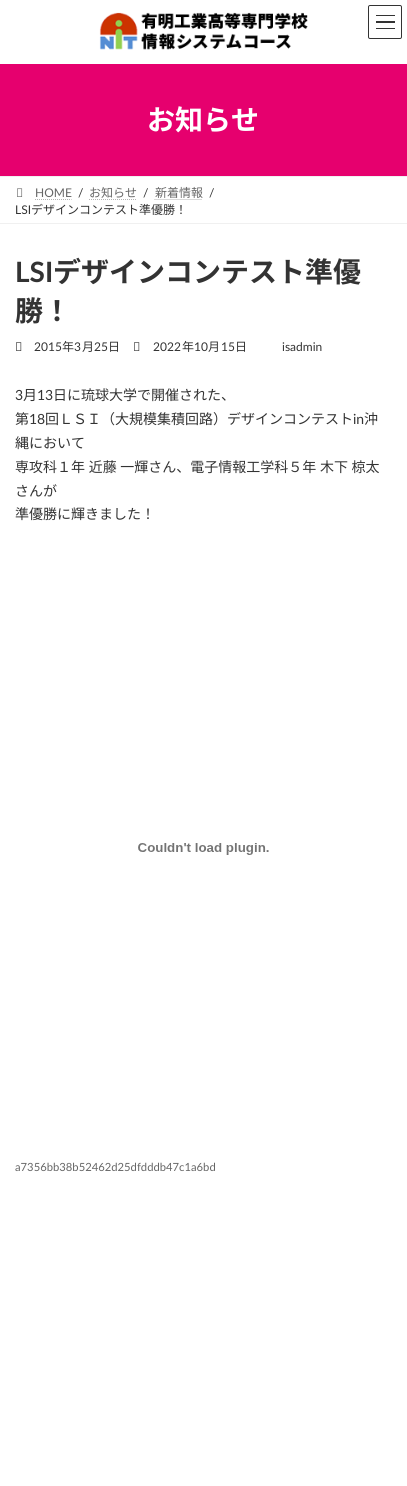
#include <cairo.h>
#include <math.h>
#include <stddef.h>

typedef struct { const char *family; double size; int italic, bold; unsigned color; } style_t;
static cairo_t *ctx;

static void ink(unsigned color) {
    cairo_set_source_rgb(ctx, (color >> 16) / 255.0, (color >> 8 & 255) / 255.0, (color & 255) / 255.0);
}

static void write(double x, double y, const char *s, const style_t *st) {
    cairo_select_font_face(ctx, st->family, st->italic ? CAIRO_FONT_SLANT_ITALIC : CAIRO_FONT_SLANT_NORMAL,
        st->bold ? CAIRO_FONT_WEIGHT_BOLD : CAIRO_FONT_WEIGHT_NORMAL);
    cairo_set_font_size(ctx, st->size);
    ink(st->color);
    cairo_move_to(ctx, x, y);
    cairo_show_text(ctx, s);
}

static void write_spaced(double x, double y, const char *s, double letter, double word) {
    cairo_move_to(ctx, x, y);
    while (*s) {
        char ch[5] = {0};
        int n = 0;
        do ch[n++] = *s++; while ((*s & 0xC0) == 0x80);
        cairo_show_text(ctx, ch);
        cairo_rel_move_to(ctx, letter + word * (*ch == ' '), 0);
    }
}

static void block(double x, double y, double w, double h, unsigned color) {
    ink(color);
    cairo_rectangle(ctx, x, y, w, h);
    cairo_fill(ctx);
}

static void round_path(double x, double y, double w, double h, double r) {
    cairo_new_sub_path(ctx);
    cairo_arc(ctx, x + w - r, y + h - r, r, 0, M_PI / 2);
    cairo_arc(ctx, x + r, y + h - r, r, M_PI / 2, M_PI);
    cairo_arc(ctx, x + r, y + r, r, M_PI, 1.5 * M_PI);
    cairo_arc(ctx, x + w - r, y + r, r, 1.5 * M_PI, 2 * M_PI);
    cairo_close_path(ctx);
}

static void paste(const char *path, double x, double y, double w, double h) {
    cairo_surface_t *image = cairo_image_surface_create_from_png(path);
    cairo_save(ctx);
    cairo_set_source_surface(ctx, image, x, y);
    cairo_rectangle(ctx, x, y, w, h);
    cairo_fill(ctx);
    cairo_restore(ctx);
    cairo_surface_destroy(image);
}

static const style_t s1 = {"Noto Sans JP", 28, 0, 1, 0xffffff};
static const style_t s2 = {"Lato", 12, 0, 0, 0x666666};
static const style_t s3 = {"Lato", 12, 0, 0, 0x333333};
static const style_t s4 = {"Noto Sans JP", 12, 0, 0, 0x666666};
static const style_t s5 = {"Noto Sans JP", 12, 0, 0, 0x333333};
static const style_t s6 = {"Lato", 28, 0, 1, 0x333333};
static const style_t s7 = {"Noto Sans JP", 28, 0, 1, 0x333333};
static const style_t s8 = {"Lato", 14, 0, 0, 0x333333};
static const style_t s9 = {"Noto Sans JP", 14, 0, 0, 0x333333};
static const style_t s10 = {"Lato", 11.25, 0, 0, 0x666666};

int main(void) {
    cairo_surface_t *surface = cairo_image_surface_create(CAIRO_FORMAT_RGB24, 407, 1486);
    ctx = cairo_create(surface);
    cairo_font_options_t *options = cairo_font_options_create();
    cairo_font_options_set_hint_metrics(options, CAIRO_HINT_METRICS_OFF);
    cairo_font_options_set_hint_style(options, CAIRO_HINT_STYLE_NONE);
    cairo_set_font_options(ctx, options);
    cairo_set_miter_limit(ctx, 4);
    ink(0xffffff);
    cairo_paint(ctx);
    paste("pic1.png", 99, 12, 209, 38);
    block(376, 15, 19, 1, 0x333333);
    block(376, 21, 19, 2, 0x333333);
    block(376, 28, 19, 1, 0x333333);
    round_path(368.5, 5.5, 33, 33, 1.5);
    cairo_set_line_width(ctx, 1);
    cairo_stroke(ctx);
    block(0, 64, 407, 112, 0xe6006e);
    write(147, 130, "お知らせ", &s1);
    block(0, 176, 407, 1, 0xf0f0f0);
    block(0, 223, 407, 1, 0xf0f0f0);
    paste("pic2.png", 17, 188, 6, 9);
    write(35, 197, "HOME", &s2);
    cairo_new_path(ctx);
    cairo_move_to(ctx, 35, 199.5);
    cairo_line_to(ctx, 71.5, 199.5);
    ink(0xb3b3b3);
    cairo_set_dash(ctx, (double[]){1, 1}, 2, 0);
    cairo_stroke(ctx);
    write(78, 197, "/", &s3);
    write(89, 197, "お知らせ", &s4);
    cairo_new_path(ctx);
    cairo_move_to(ctx, 89, 199.5);
    cairo_line_to(ctx, 137, 199.5);
    ink(0xb3b3b3);
    cairo_stroke(ctx);
    write(143, 197, "/", &s3);
    write(155, 197, "新着情報", &s4);
    cairo_new_path(ctx);
    cairo_move_to(ctx, 154.5, 199.5);
    cairo_line_to(ctx, 202.5, 199.5);
    ink(0xb3b3b3);
    cairo_stroke(ctx);
    write(209, 197, "/", &s3);
    write(15, 214, "LSI", &s3);
    write(31, 214, "デザインコンテスト準優勝！", &s5);
    write(15, 282, "LSI", &s6);
    write(53, 282, "デザインコンテスト準優", &s7);
    write(15, 321, "勝！", &s7);
    paste("pic3.png", 16, 342, 6, 9);
    write(34, 351, "2015", &s3);
    write(62, 351, "年", &s5);
    write(74, 351, "3", &s3);
    write(82, 351, "月", &s5);
    write(94, 351, "25", &s3);
    write(108, 351, "日", &s5);
    paste("pic3.png", 134, 342, 6, 9);
    write(153, 351, "2022", &s3);
    write(182, 351, "年", &s5);
    write(194, 351, "10", &s3);
    write(208, 351, "月", &s5);
    write(221, 351, "15", &s3);
    write(235, 351, "日", &s5);
    write(282, 351, "isadmin", &s3);
    write(15, 400, "3", &s8);
    write(23, 400, "月", &s9);
    write(37, 400, "13", &s8);
    write(53, 400, "日に琉球大学で開催された、", &s9);
    write(15, 424, "第", &s9);
    write(29, 424, "18", &s8);
    write(45, 424, "回ＬＳＩ（大規模集積回路）デザインコンテスト", &s9);
    write(353, 424, "in", &s8);
    write(364, 424, "沖", &s9);
    write(15, 448, "縄において", &s9);
    write_spaced(15, 472, "専攻科１年 近藤 一輝さん、電子情報工学科５年 木下 椋太", 0, 0.5);
    write(15, 496, "さんが", &s9);
    write(15, 519, "準優勝に輝きました！", &s9);
    paste("pic4.png", 138, 843, 131, 12);
    write(15, 1171, "a7356bb38b52462d25dfdddb47c1a6bd", &s10);
    cairo_surface_write_to_png(surface, "screenshot.png");
    cairo_font_options_destroy(options);
    cairo_destroy(ctx);
    cairo_surface_destroy(surface);
    return 0;
}
